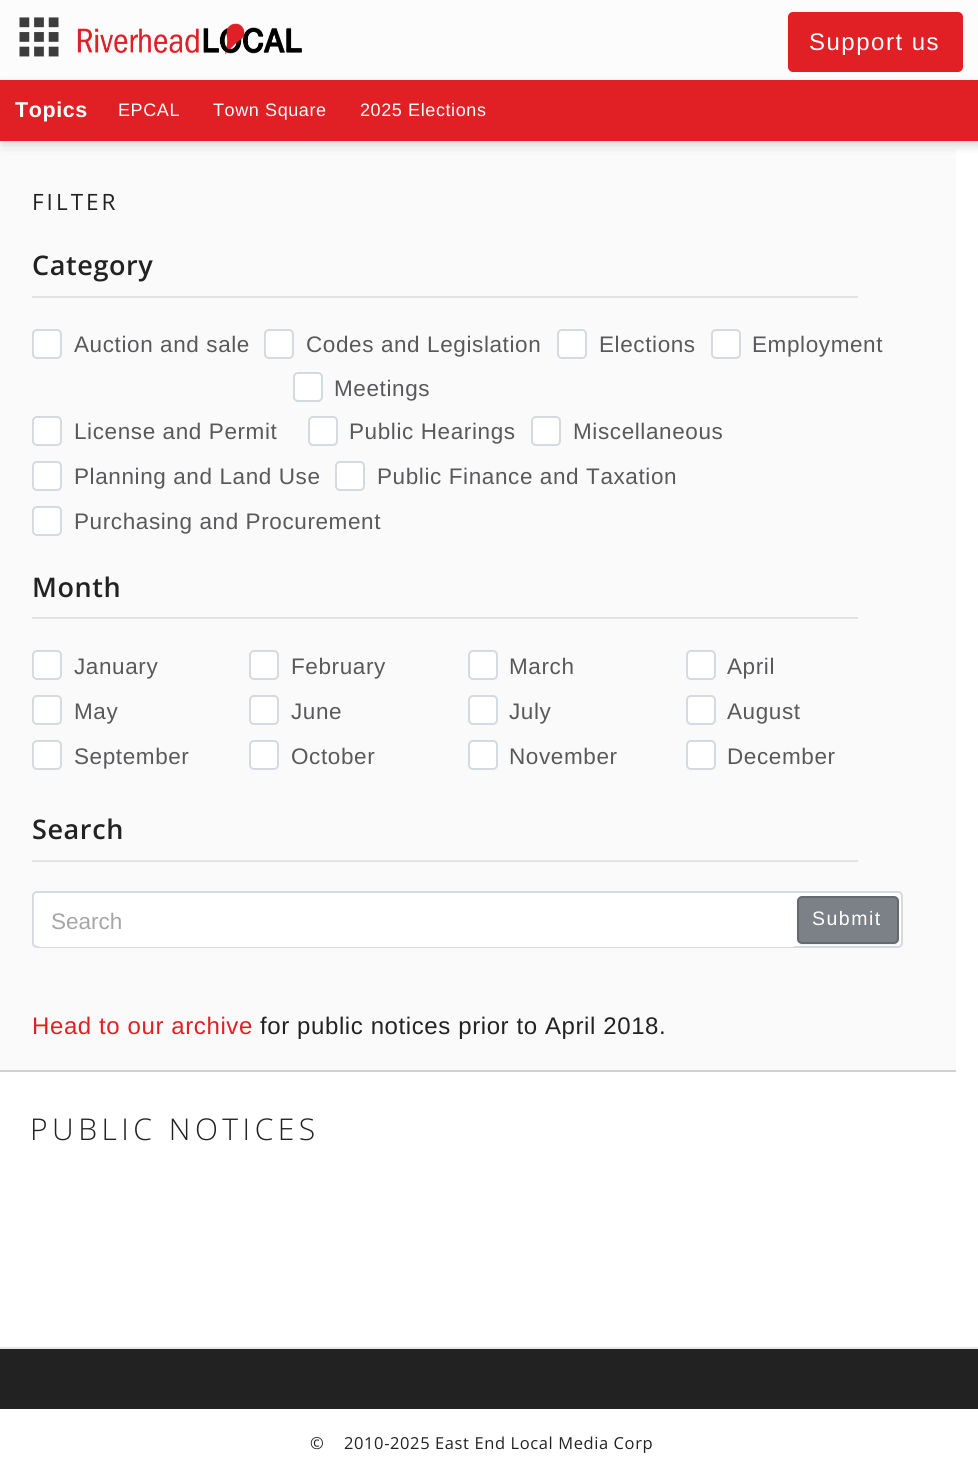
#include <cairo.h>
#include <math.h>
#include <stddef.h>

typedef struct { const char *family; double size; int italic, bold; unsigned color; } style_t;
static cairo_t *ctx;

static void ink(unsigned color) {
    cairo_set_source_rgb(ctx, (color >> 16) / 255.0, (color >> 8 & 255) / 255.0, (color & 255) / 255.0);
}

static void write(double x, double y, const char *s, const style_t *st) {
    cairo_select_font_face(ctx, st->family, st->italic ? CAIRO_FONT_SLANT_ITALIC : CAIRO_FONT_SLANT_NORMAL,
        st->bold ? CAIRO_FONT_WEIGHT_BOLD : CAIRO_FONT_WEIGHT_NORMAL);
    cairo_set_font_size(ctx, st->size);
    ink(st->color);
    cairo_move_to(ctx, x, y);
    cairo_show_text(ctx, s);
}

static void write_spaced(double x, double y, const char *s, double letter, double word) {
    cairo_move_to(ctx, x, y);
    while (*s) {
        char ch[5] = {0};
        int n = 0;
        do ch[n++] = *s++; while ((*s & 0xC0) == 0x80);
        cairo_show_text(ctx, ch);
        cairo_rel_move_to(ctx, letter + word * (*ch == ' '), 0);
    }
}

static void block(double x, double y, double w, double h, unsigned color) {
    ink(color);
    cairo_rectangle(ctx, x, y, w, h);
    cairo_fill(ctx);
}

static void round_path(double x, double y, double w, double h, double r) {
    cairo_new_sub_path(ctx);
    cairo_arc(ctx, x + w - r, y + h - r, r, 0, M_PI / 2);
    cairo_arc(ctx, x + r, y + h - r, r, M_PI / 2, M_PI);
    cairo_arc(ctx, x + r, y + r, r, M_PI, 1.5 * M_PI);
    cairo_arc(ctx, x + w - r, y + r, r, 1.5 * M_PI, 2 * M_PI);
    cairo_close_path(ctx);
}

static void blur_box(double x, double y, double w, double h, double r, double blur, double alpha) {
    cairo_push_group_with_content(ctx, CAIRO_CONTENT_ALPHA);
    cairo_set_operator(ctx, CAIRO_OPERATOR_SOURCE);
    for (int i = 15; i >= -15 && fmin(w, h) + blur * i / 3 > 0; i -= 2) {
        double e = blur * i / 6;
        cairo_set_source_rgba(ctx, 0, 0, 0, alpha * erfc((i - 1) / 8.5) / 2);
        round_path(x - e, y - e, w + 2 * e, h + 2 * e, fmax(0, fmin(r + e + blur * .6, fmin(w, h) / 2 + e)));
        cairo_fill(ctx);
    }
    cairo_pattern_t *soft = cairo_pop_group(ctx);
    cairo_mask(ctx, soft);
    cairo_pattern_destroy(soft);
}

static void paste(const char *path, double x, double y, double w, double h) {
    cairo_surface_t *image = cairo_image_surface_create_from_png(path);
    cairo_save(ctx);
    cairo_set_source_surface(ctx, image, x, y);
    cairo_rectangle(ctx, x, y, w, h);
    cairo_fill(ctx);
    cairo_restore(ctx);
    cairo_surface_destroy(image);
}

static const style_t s1 = {"Liberation Sans", 22.5, 0, 0, 0xa6a6a6};

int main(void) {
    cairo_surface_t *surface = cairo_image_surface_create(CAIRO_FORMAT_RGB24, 978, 1473);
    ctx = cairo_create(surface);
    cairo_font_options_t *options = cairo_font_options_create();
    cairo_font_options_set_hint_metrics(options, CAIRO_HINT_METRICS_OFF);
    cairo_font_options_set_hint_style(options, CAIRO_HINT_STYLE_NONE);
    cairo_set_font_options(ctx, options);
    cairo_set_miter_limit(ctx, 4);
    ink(0xffffff);
    cairo_paint(ctx);
    block(0, 0, 978, 80, 0xfcfcfc);
    paste("pic1.png", 19, 17, 40, 40);
    paste("pic2.png", 77, 23, 225, 32);
    block(0, 149, 956, 921, 0xfafafa);
    ink(0x000000);
    blur_box(2, 84, 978, 62, 0, 4.5, 0.15);
    ink(0xe12025);
    round_path(788, 12, 175, 60, 5);
    cairo_fill(ctx);
    cairo_select_font_face(ctx, "Liberation Sans", CAIRO_FONT_SLANT_NORMAL, CAIRO_FONT_WEIGHT_NORMAL);
    cairo_set_font_size(ctx, 24);
    ink(0xffffff);
    write_spaced(809, 50, "Support us", 1.5, 0);
    block(0, 80, 978, 61, 0xe12025);
    cairo_select_font_face(ctx, "Liberation Sans", CAIRO_FONT_SLANT_NORMAL, CAIRO_FONT_WEIGHT_BOLD);
    cairo_set_font_size(ctx, 21.5);
    ink(0xffffff);
    write_spaced(15, 117, "Topics", 0.6, 0);
    cairo_select_font_face(ctx, "Liberation Sans", CAIRO_FONT_SLANT_NORMAL, CAIRO_FONT_WEIGHT_NORMAL);
    cairo_set_font_size(ctx, 18);
    write_spaced(118, 116, "EPCAL", 0.6, 0);
    write_spaced(213, 116, "Town Square", 0.6, 0);
    write_spaced(360, 116, "2025 Elections", 0.6, 0);
    block(0, 1347, 978, 2, 0xe6e6e6);
    block(0, 1070, 956, 2, 0xd1d1d1);
    cairo_select_font_face(ctx, "Open Sans", CAIRO_FONT_SLANT_NORMAL, CAIRO_FONT_WEIGHT_NORMAL);
    cairo_set_font_size(ctx, 22.5);
    ink(0x222222);
    write_spaced(32, 210, "FILTER", 3, 0);
    block(32, 296, 826, 2, 0xe3e3e3);
    cairo_select_font_face(ctx, "Open Sans SemiBold", CAIRO_FONT_SLANT_NORMAL, CAIRO_FONT_WEIGHT_NORMAL);
    cairo_set_font_size(ctx, 27);
    ink(0x222222);
    write_spaced(32, 275, "Category", 0.6, 0);
    ink(0xffffff);
    round_path(33, 330, 28, 28, 4);
    cairo_fill_preserve(ctx);
    ink(0xd6d9dd);
    cairo_stroke(ctx);
    cairo_select_font_face(ctx, "Liberation Sans", CAIRO_FONT_SLANT_NORMAL, CAIRO_FONT_WEIGHT_NORMAL);
    cairo_set_font_size(ctx, 22.5);
    ink(0x59595c);
    write_spaced(74, 352, "Auction and sale", 0.6, 0);
    ink(0xffffff);
    round_path(265, 330, 28, 28, 4);
    cairo_fill_preserve(ctx);
    ink(0xd6d9dd);
    cairo_stroke(ctx);
    ink(0x59595c);
    write_spaced(306, 352, "Codes and Legislation", 0.6, 0);
    ink(0xffffff);
    round_path(558, 330, 28, 28, 4);
    cairo_fill_preserve(ctx);
    ink(0xd6d9dd);
    cairo_stroke(ctx);
    ink(0x59595c);
    write_spaced(599, 352, "Elections", 0.6, 0);
    ink(0xffffff);
    round_path(712, 330, 28, 28, 4);
    cairo_fill_preserve(ctx);
    ink(0xd6d9dd);
    cairo_stroke(ctx);
    ink(0x59595c);
    write_spaced(752, 352, "Employment", 0.6, 0);
    ink(0xffffff);
    round_path(33, 417, 28, 28, 4);
    cairo_fill_preserve(ctx);
    ink(0xd6d9dd);
    cairo_stroke(ctx);
    ink(0x59595c);
    write_spaced(74, 439, "License and Permit", 0.6, 0);
    ink(0xffffff);
    round_path(294, 373, 28, 28, 4);
    cairo_fill_preserve(ctx);
    ink(0xd6d9dd);
    cairo_stroke(ctx);
    ink(0x59595c);
    write_spaced(334, 396, "Meetings", 0.6, 0);
    ink(0xffffff);
    round_path(309, 417, 28, 28, 4);
    cairo_fill_preserve(ctx);
    ink(0xd6d9dd);
    cairo_stroke(ctx);
    ink(0x59595c);
    write_spaced(349, 439, "Public Hearings", 0.6, 0);
    ink(0xffffff);
    round_path(532, 417, 28, 28, 4);
    cairo_fill_preserve(ctx);
    ink(0xd6d9dd);
    cairo_stroke(ctx);
    ink(0x59595c);
    write_spaced(573, 439, "Miscellaneous", 0.6, 0);
    ink(0xffffff);
    round_path(33, 462, 28, 28, 4);
    cairo_fill_preserve(ctx);
    ink(0xd6d9dd);
    cairo_stroke(ctx);
    ink(0x59595c);
    write_spaced(74, 484, "Planning and Land Use", 0.6, 0);
    ink(0xffffff);
    round_path(336, 462, 28, 28, 4);
    cairo_fill_preserve(ctx);
    ink(0xd6d9dd);
    cairo_stroke(ctx);
    ink(0x59595c);
    write_spaced(377, 484, "Public Finance and Taxation", 0.6, 0);
    ink(0xffffff);
    round_path(33, 507, 28, 28, 4);
    cairo_fill_preserve(ctx);
    ink(0xd6d9dd);
    cairo_stroke(ctx);
    ink(0x59595c);
    write_spaced(74, 529, "Purchasing and Procurement", 0.6, 0);
    block(32, 617, 826, 2, 0xe3e3e3);
    cairo_select_font_face(ctx, "Open Sans SemiBold", CAIRO_FONT_SLANT_NORMAL, CAIRO_FONT_WEIGHT_NORMAL);
    cairo_set_font_size(ctx, 27);
    ink(0x222222);
    write_spaced(32, 597, "Month", 0.6, 0);
    ink(0xffffff);
    round_path(33, 651, 28, 28, 4);
    cairo_fill_preserve(ctx);
    ink(0xd6d9dd);
    cairo_stroke(ctx);
    cairo_select_font_face(ctx, "Liberation Sans", CAIRO_FONT_SLANT_NORMAL, CAIRO_FONT_WEIGHT_NORMAL);
    cairo_set_font_size(ctx, 22.5);
    ink(0x59595c);
    write_spaced(74, 674, "January", 0.6, 0);
    ink(0xffffff);
    round_path(250, 651, 28, 28, 4);
    cairo_fill_preserve(ctx);
    ink(0xd6d9dd);
    cairo_stroke(ctx);
    ink(0x59595c);
    write_spaced(291, 674, "February", 0.6, 0);
    ink(0xffffff);
    round_path(469, 651, 28, 28, 4);
    cairo_fill_preserve(ctx);
    ink(0xd6d9dd);
    cairo_stroke(ctx);
    ink(0x59595c);
    write_spaced(509, 674, "March", 0.6, 0);
    ink(0xffffff);
    round_path(687, 651, 28, 28, 4);
    cairo_fill_preserve(ctx);
    ink(0xd6d9dd);
    cairo_stroke(ctx);
    ink(0x59595c);
    write_spaced(727, 674, "April", 0.6, 0);
    ink(0xffffff);
    round_path(33, 696, 28, 28, 4);
    cairo_fill_preserve(ctx);
    ink(0xd6d9dd);
    cairo_stroke(ctx);
    ink(0x59595c);
    write_spaced(74, 719, "May", 0.6, 0);
    ink(0xffffff);
    round_path(250, 696, 28, 28, 4);
    cairo_fill_preserve(ctx);
    ink(0xd6d9dd);
    cairo_stroke(ctx);
    ink(0x59595c);
    write_spaced(291, 719, "June", 0.6, 0);
    ink(0xffffff);
    round_path(469, 696, 28, 28, 4);
    cairo_fill_preserve(ctx);
    ink(0xd6d9dd);
    cairo_stroke(ctx);
    ink(0x59595c);
    write_spaced(509, 719, "July", 0.6, 0);
    ink(0xffffff);
    round_path(687, 696, 28, 28, 4);
    cairo_fill_preserve(ctx);
    ink(0xd6d9dd);
    cairo_stroke(ctx);
    ink(0x59595c);
    write_spaced(727, 719, "August", 0.6, 0);
    ink(0xffffff);
    round_path(33, 741, 28, 28, 4);
    cairo_fill_preserve(ctx);
    ink(0xd6d9dd);
    cairo_stroke(ctx);
    ink(0x59595c);
    write_spaced(74, 764, "September", 0.6, 0);
    ink(0xffffff);
    round_path(250, 741, 28, 28, 4);
    cairo_fill_preserve(ctx);
    ink(0xd6d9dd);
    cairo_stroke(ctx);
    ink(0x59595c);
    write_spaced(291, 764, "October", 0.6, 0);
    ink(0xffffff);
    round_path(469, 741, 28, 28, 4);
    cairo_fill_preserve(ctx);
    ink(0xd6d9dd);
    cairo_stroke(ctx);
    ink(0x59595c);
    write_spaced(509, 764, "November", 0.6, 0);
    ink(0xffffff);
    round_path(687, 741, 28, 28, 4);
    cairo_fill_preserve(ctx);
    ink(0xd6d9dd);
    cairo_stroke(ctx);
    ink(0x59595c);
    write_spaced(727, 764, "December", 0.6, 0);
    block(32, 860, 826, 2, 0xe3e3e3);
    cairo_select_font_face(ctx, "Open Sans SemiBold", CAIRO_FONT_SLANT_NORMAL, CAIRO_FONT_WEIGHT_NORMAL);
    cairo_set_font_size(ctx, 27);
    ink(0x222222);
    write_spaced(32, 839, "Search", 0.6, 0);
    ink(0xffffff);
    round_path(33, 892, 869, 55, 4);
    cairo_fill_preserve(ctx);
    ink(0xd6d9dd);
    cairo_stroke(ctx);
    ink(0xffffff);
    round_path(36, 896, 761, 51, 5);
    cairo_fill(ctx);
    write(51, 929, "Search", &s1);
    ink(0x000000);
    blur_box(797, 897, 102, 48, 5, 1, 0.07);
    ink(0x7c8087);
    round_path(798, 897, 100, 46, 4);
    cairo_fill_preserve(ctx);
    ink(0x65686d);
    cairo_stroke(ctx);
    cairo_set_font_size(ctx, 19.5);
    ink(0xffffff);
    write_spaced(812, 925, "Submit", 1.5, 0);
    cairo_set_font_size(ctx, 24);
    ink(0xe12025);
    write_spaced(32, 1034, "Head to our archive", 0.6, 0);
    ink(0x222222);
    write_spaced(260, 1034, "for public notices prior to April 2018.", 0.6, 0);
    cairo_select_font_face(ctx, "Open Sans Light", CAIRO_FONT_SLANT_NORMAL, CAIRO_FONT_WEIGHT_NORMAL);
    cairo_set_font_size(ctx, 30);
    write_spaced(30, 1140, "PUBLIC NOTICES", 4.5, 0);
    block(0, 1349, 978, 60, 0x222222);
    cairo_select_font_face(ctx, "Open Sans", CAIRO_FONT_SLANT_NORMAL, CAIRO_FONT_WEIGHT_NORMAL);
    cairo_set_font_size(ctx, 16.5);
    write_spaced(310, 1449, "©", 0.6, 0);
    write_spaced(344, 1449, "2010-2025 East End Local Media Corp", 0.6, 0);
    cairo_surface_write_to_png(surface, "screenshot.png");
    cairo_font_options_destroy(options);
    cairo_destroy(ctx);
    cairo_surface_destroy(surface);
    return 0;
}
